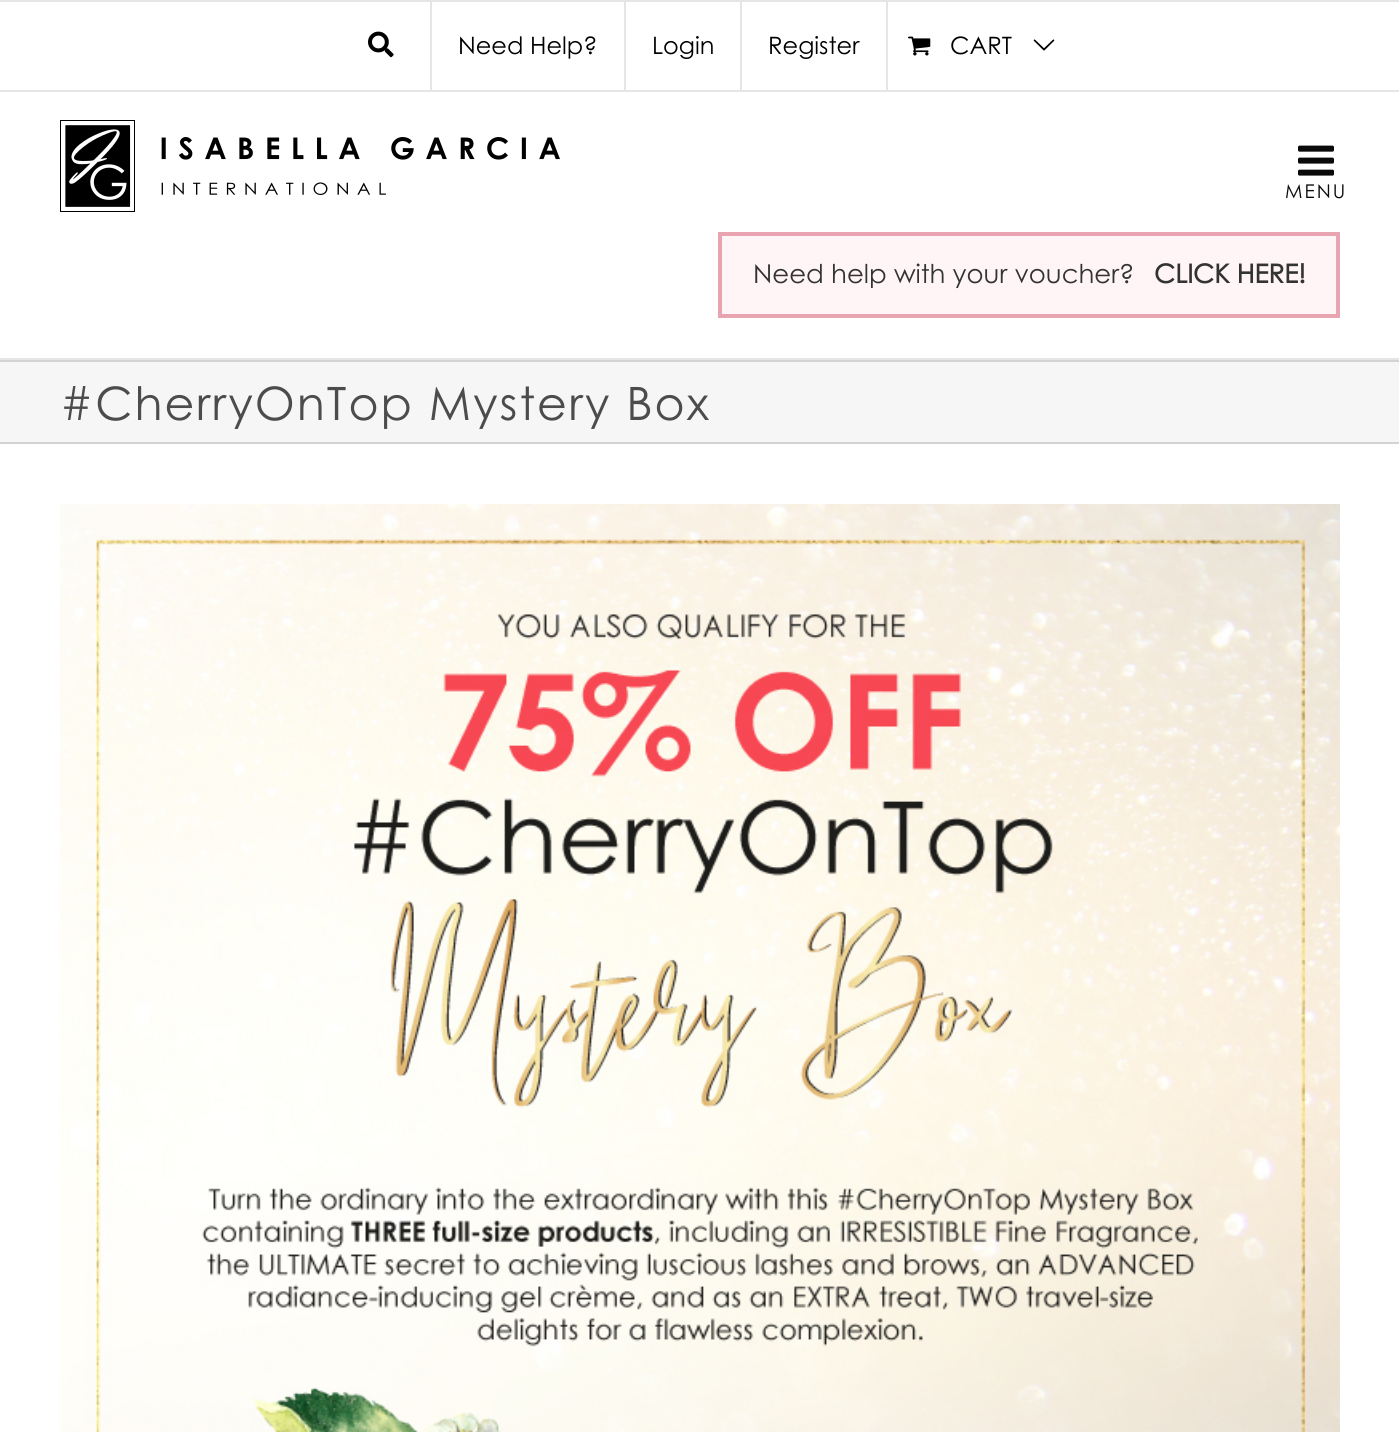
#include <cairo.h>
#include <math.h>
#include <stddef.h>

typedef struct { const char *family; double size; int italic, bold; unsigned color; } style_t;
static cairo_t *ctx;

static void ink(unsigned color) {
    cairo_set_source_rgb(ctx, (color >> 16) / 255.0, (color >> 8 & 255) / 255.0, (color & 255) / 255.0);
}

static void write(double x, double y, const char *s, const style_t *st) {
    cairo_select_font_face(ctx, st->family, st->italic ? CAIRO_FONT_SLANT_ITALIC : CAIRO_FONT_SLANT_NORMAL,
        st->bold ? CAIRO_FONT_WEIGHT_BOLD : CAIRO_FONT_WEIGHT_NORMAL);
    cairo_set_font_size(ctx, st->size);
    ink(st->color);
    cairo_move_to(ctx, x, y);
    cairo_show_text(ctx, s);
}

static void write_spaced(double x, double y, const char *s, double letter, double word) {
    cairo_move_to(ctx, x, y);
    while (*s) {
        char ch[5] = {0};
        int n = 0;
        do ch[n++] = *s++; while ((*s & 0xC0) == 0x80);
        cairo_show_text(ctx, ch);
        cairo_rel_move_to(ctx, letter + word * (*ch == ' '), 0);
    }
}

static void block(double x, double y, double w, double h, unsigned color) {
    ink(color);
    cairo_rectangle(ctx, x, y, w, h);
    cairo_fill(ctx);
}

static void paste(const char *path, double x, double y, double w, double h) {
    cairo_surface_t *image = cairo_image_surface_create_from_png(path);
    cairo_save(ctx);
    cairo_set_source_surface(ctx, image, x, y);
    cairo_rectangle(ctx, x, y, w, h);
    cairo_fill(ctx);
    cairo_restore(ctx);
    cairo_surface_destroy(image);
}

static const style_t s1 = {"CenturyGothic", 24, 0, 0, 0x000000};
static const style_t s2 = {"CenturyGothic", 26, 0, 0, 0x333333};
static const style_t s3 = {"CenturyGothic", 26, 0, 1, 0x333333};

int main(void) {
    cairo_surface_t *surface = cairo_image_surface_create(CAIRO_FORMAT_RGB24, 1399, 1432);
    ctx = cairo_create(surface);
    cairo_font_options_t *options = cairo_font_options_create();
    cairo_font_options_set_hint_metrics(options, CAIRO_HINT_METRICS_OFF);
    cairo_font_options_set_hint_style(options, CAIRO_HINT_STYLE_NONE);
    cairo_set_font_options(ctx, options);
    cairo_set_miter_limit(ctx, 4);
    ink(0xffffff);
    cairo_paint(ctx);
    block(0, 90, 1399, 2, 0xe5e5e5);
    block(0, 0, 1399, 2, 0xe5e5e5);
    paste("pic1.png", 368, 31, 26, 27);
    block(430, 2, 2, 88, 0xe5e5e5);
    write(458, 54, "Need Help?", &s1);
    block(624, 2, 2, 88, 0xe5e5e5);
    write(652, 54, "Login", &s1);
    block(740, 2, 2, 88, 0xe5e5e5);
    write(768, 54, "Register", &s1);
    block(886, 2, 2, 88, 0xe5e5e5);
    paste("pic2.png", 908, 36, 23, 20);
    write(950, 54, "CART", &s1);
    paste("pic3.png", 1033, 39, 22, 12);
    block(0, 358, 1399, 2, 0xe5e5e5);
    paste("pic4.png", 1298, 145, 36, 31);
    cairo_set_font_size(ctx, 19);
    ink(0x0a0a0a);
    write_spaced(1285, 198, "MENU", 2, 0);
    paste("pic5.png", 60, 120, 500, 92);
    ink(0xfff5f7);
    cairo_rectangle(ctx, 720, 234, 618, 82);
    cairo_fill_preserve(ctx);
    ink(0xe8a5b1);
    cairo_set_line_width(ctx, 4);
    cairo_stroke(ctx);
    write(753, 283, "Need help with your voucher?", &s2);
    write(1154, 283, "CLICK HERE!", &s3);
    block(0, 362, 1399, 80, 0xf6f6f6);
    block(0, 360, 1399, 2, 0xd2d3d4);
    block(0, 442, 1399, 2, 0xd2d3d4);
    cairo_select_font_face(ctx, "CenturyGothic", CAIRO_FONT_SLANT_NORMAL, CAIRO_FONT_WEIGHT_NORMAL);
    cairo_set_font_size(ctx, 46);
    ink(0x4d4c4d);
    write_spaced(60, 420, "#CherryOnTop Mystery Box", 2, 0);
    paste("pic6.png", 60, 504, 1280, 928);
    cairo_surface_write_to_png(surface, "screenshot.png");
    cairo_font_options_destroy(options);
    cairo_destroy(ctx);
    cairo_surface_destroy(surface);
    return 0;
}
